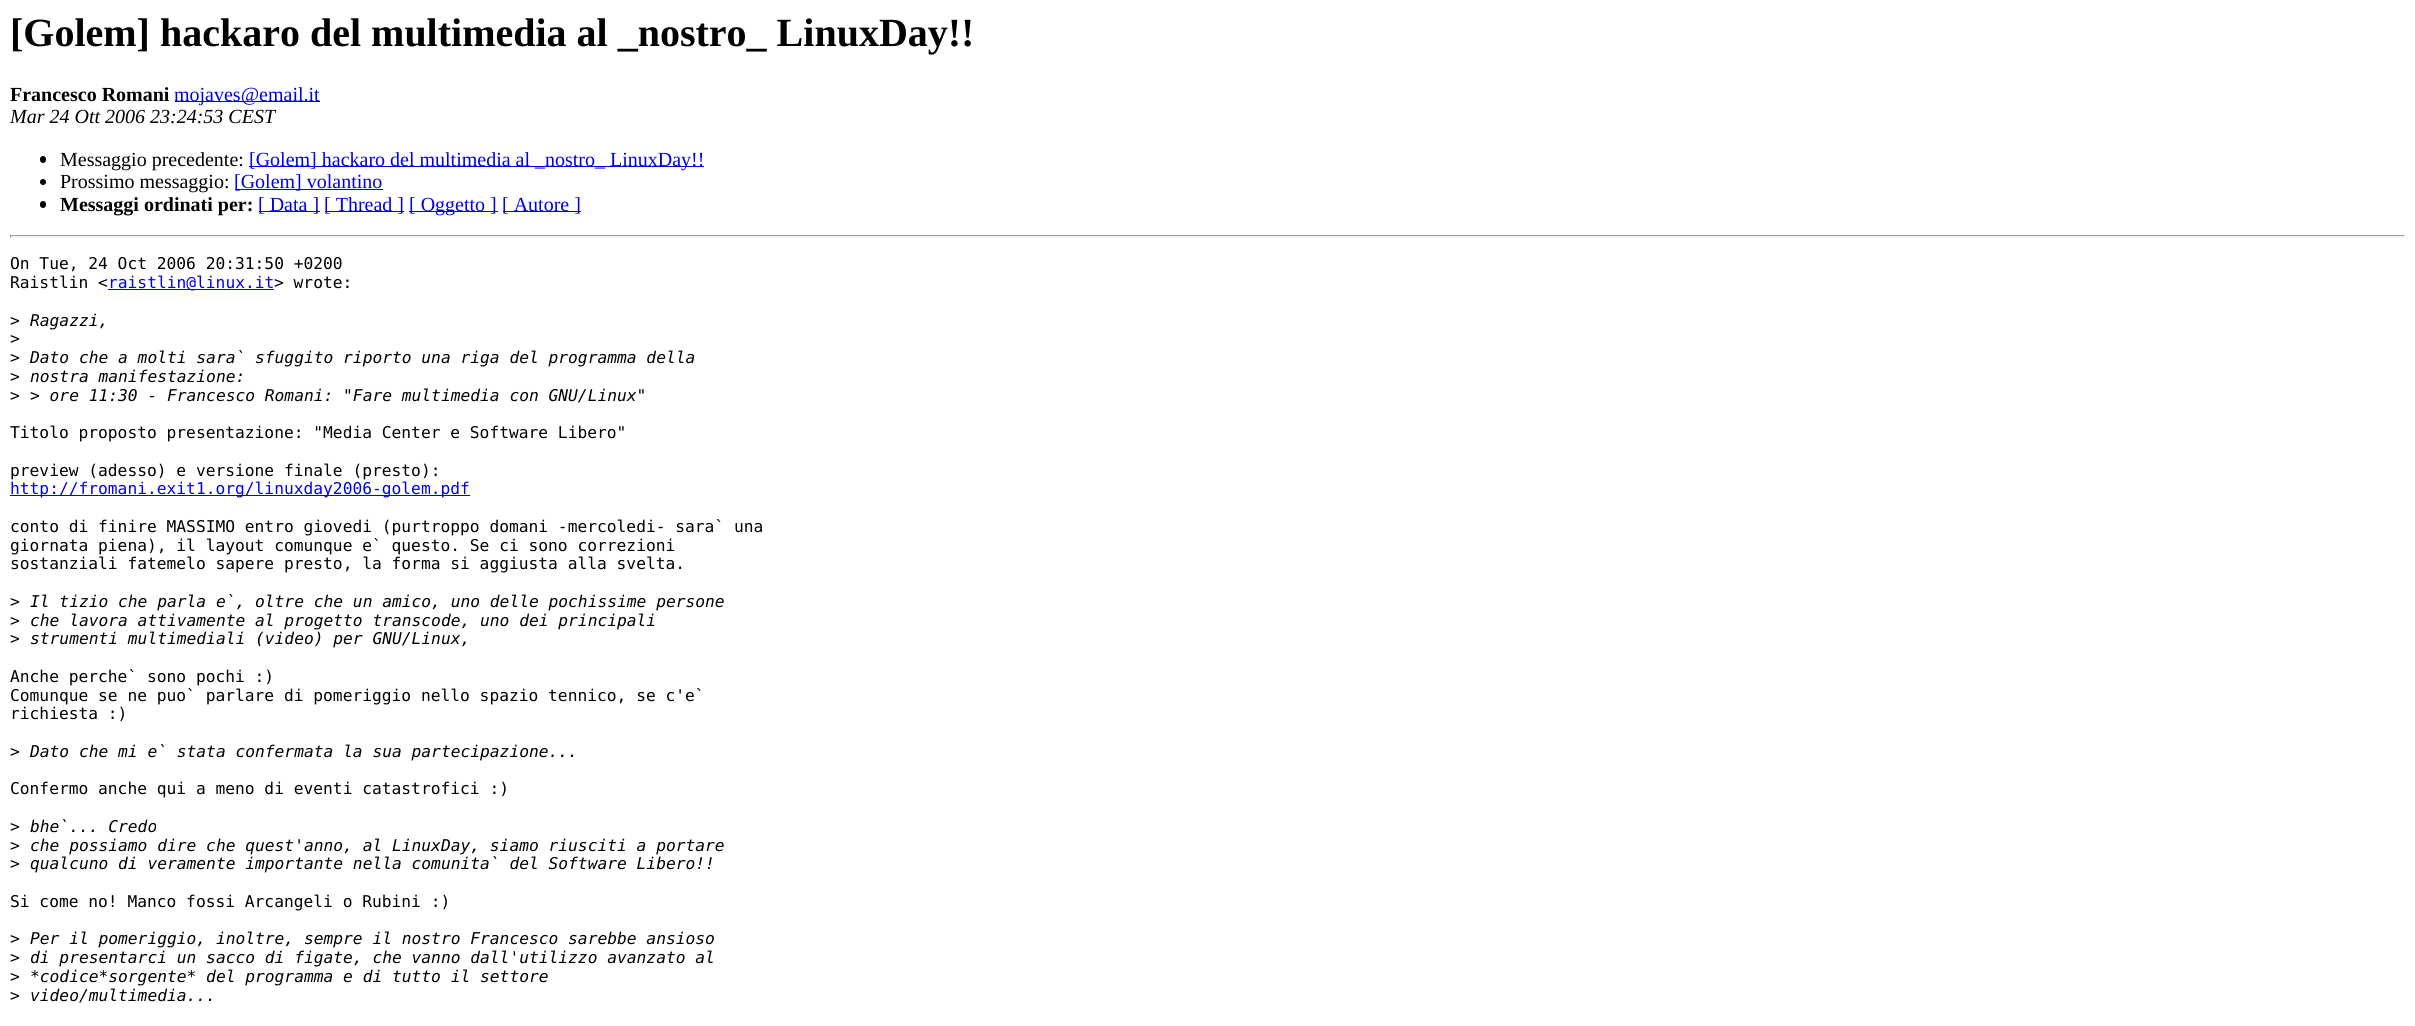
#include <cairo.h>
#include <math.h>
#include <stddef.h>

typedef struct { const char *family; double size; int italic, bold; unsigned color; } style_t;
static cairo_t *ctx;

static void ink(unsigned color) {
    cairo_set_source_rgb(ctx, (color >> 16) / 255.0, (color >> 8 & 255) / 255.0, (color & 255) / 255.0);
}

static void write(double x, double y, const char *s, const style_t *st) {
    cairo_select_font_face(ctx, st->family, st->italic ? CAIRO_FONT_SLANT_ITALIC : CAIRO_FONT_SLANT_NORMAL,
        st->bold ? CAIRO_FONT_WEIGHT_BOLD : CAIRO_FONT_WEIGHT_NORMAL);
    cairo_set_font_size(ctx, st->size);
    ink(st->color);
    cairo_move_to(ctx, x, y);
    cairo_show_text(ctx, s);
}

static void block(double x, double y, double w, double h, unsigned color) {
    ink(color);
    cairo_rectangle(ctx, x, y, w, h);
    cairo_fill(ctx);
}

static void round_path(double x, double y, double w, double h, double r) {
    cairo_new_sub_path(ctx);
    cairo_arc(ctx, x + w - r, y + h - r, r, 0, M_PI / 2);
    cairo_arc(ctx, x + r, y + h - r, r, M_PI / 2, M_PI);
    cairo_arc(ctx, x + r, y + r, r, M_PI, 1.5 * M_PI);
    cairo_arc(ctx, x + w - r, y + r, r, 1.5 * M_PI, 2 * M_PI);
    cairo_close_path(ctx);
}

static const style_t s1 = {"Liberation Serif", 40, 0, 1, 0x000000};
static const style_t s2 = {"Liberation Serif", 20, 0, 1, 0x000000};
static const style_t s3 = {"Liberation Serif", 20, 0, 0, 0x0000ee};
static const style_t s4 = {"Liberation Serif", 20, 1, 0, 0x000000};
static const style_t s5 = {"Liberation Serif", 20, 0, 0, 0x000000};
static const style_t s6 = {"DejaVu Sans Mono", 16.25, 0, 0, 0x000000};
static const style_t s7 = {"DejaVu Sans Mono", 16.25, 0, 0, 0x0000ee};
static const style_t s8 = {"DejaVu Sans Mono", 16.25, 1, 0, 0x000000};

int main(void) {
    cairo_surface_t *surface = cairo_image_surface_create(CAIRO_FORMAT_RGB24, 2415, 1026);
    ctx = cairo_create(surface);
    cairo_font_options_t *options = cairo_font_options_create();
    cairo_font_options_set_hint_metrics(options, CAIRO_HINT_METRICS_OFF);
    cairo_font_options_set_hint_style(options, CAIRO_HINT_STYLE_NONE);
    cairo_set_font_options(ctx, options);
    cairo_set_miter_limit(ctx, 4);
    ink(0xffffff);
    cairo_paint(ctx);
    write(10, 46, "[Golem] hackaro del multimedia al _nostro_ LinuxDay!!", &s1);
    write(10, 101, "Francesco Romani", &s2);
    block(175, 101, 145, 1, 0x0000ee);
    write(174, 101, "mojaves@email.it", &s3);
    write(10, 123, "Mar 24 Ott 2006 23:24:53 CEST", &s4);
    round_path(40, 156, 6, 7, 3);
    cairo_fill(ctx);
    write(60, 166, "Messaggio precedente:", &s5);
    block(249, 166, 455, 1, 0x0000ee);
    write(249, 166, "[Golem] hackaro del multimedia al _nostro_ LinuxDay!!", &s3);
    ink(0x000000);
    cairo_new_path(ctx);
    cairo_arc(ctx, 43, 182, 3, 0, 2 * M_PI);
    cairo_fill(ctx);
    write(60, 188, "Prossimo messaggio:", &s5);
    block(235, 189, 148, 1, 0x0000ee);
    write(234, 188, "[Golem] volantino", &s3);
    ink(0x000000);
    round_path(40, 201, 6, 7, 3);
    cairo_fill(ctx);
    write(60, 211, "Messaggi ordinati per:", &s2);
    block(259, 211, 61, 1, 0x0000ee);
    write(258, 211, "[ Data ]", &s3);
    block(325, 211, 79, 1, 0x0000ee);
    write(324, 211, "[ Thread ]", &s3);
    block(409, 211, 89, 1, 0x0000ee);
    write(409, 211, "[ Oggetto ]", &s3);
    block(503, 211, 78, 1, 0x0000ee);
    write(502, 211, "[ Autore ]", &s3);
    block(10, 235, 2395, 1, 0x9f9f9f);
    block(2404, 235, 1, 3, 0xeeeeee);
    block(10, 236, 2395, 1, 0xeeeeee);
    block(10, 235, 1, 3, 0x9f9f9f);
    write(10, 269, "On Tue, 24 Oct 2006 20:31:50 +0200", &s6);
    write(10, 288, "Raistlin <", &s6);
    block(108, 289, 166, 1, 0x0000ee);
    write(108, 288, "raistlin@linux.it", &s7);
    write(274, 288, "> wrote:", &s6);
    write(10, 326, ">", &s6);
    write(30, 326, "Ragazzi,", &s8);
    write(10, 344, ">", &s6);
    write(10, 363, ">", &s6);
    write(30, 363, "Dato che a molti sara` sfuggito riporto una riga del programma della", &s8);
    write(10, 382, ">", &s6);
    write(30, 382, "nostra manifestazione:", &s8);
    write(10, 401, ">", &s6);
    write(30, 401, "> ore 11:30 - Francesco Romani: \"Fare multimedia con GNU/Linux\"", &s8);
    write(10, 438, "Titolo proposto presentazione: \"Media Center e Software Libero\"", &s6);
    write(10, 476, "preview (adesso) e versione finale (presto):", &s6);
    block(10, 495, 460, 1, 0x0000ee);
    write(10, 494, "http://fromani.exit1.org/linuxday2006-golem.pdf", &s7);
    write(10, 532, "conto di finire MASSIMO entro giovedi (purtroppo domani -mercoledi- sara` una", &s6);
    write(10, 551, "giornata piena), il layout comunque e` questo. Se ci sono correzioni", &s6);
    write(10, 569, "sostanziali fatemelo sapere presto, la forma si aggiusta alla svelta.", &s6);
    write(10, 607, ">", &s6);
    write(30, 607, "Il tizio che parla e`, oltre che un amico, uno delle pochissime persone", &s8);
    write(10, 626, ">", &s6);
    write(30, 626, "che lavora attivamente al progetto transcode, uno dei principali", &s8);
    write(10, 644, ">", &s6);
    write(30, 644, "strumenti multimediali (video) per GNU/Linux,", &s8);
    write(10, 682, "Anche perche` sono pochi :)", &s6);
    write(10, 701, "Comunque se ne puo` parlare di pomeriggio nello spazio tennico, se c'e`", &s6);
    write(10, 719, "richiesta :)", &s6);
    write(10, 757, ">", &s6);
    write(30, 757, "Dato che mi e` stata confermata la sua partecipazione...", &s8);
    write(10, 794, "Confermo anche qui a meno di eventi catastrofici :)", &s6);
    write(10, 832, ">", &s6);
    write(30, 832, "bhe`... Credo", &s8);
    write(10, 851, ">", &s6);
    write(30, 851, "che possiamo dire che quest'anno, al LinuxDay, siamo riusciti a portare", &s8);
    write(10, 869, ">", &s6);
    write(30, 869, "qualcuno di veramente importante nella comunita` del Software Libero!!", &s8);
    write(10, 907, "Si come no! Manco fossi Arcangeli o Rubini :)", &s6);
    write(10, 944, ">", &s6);
    write(30, 944, "Per il pomeriggio, inoltre, sempre il nostro Francesco sarebbe ansioso", &s8);
    write(10, 963, ">", &s6);
    write(30, 963, "di presentarci un sacco di figate, che vanno dall'utilizzo avanzato al", &s8);
    write(10, 982, ">", &s6);
    write(30, 982, "*codice*sorgente* del programma e di tutto il settore", &s8);
    write(10, 1001, ">", &s6);
    write(30, 1001, "video/multimedia...", &s8);
    cairo_surface_write_to_png(surface, "screenshot.png");
    cairo_font_options_destroy(options);
    cairo_destroy(ctx);
    cairo_surface_destroy(surface);
    return 0;
}
